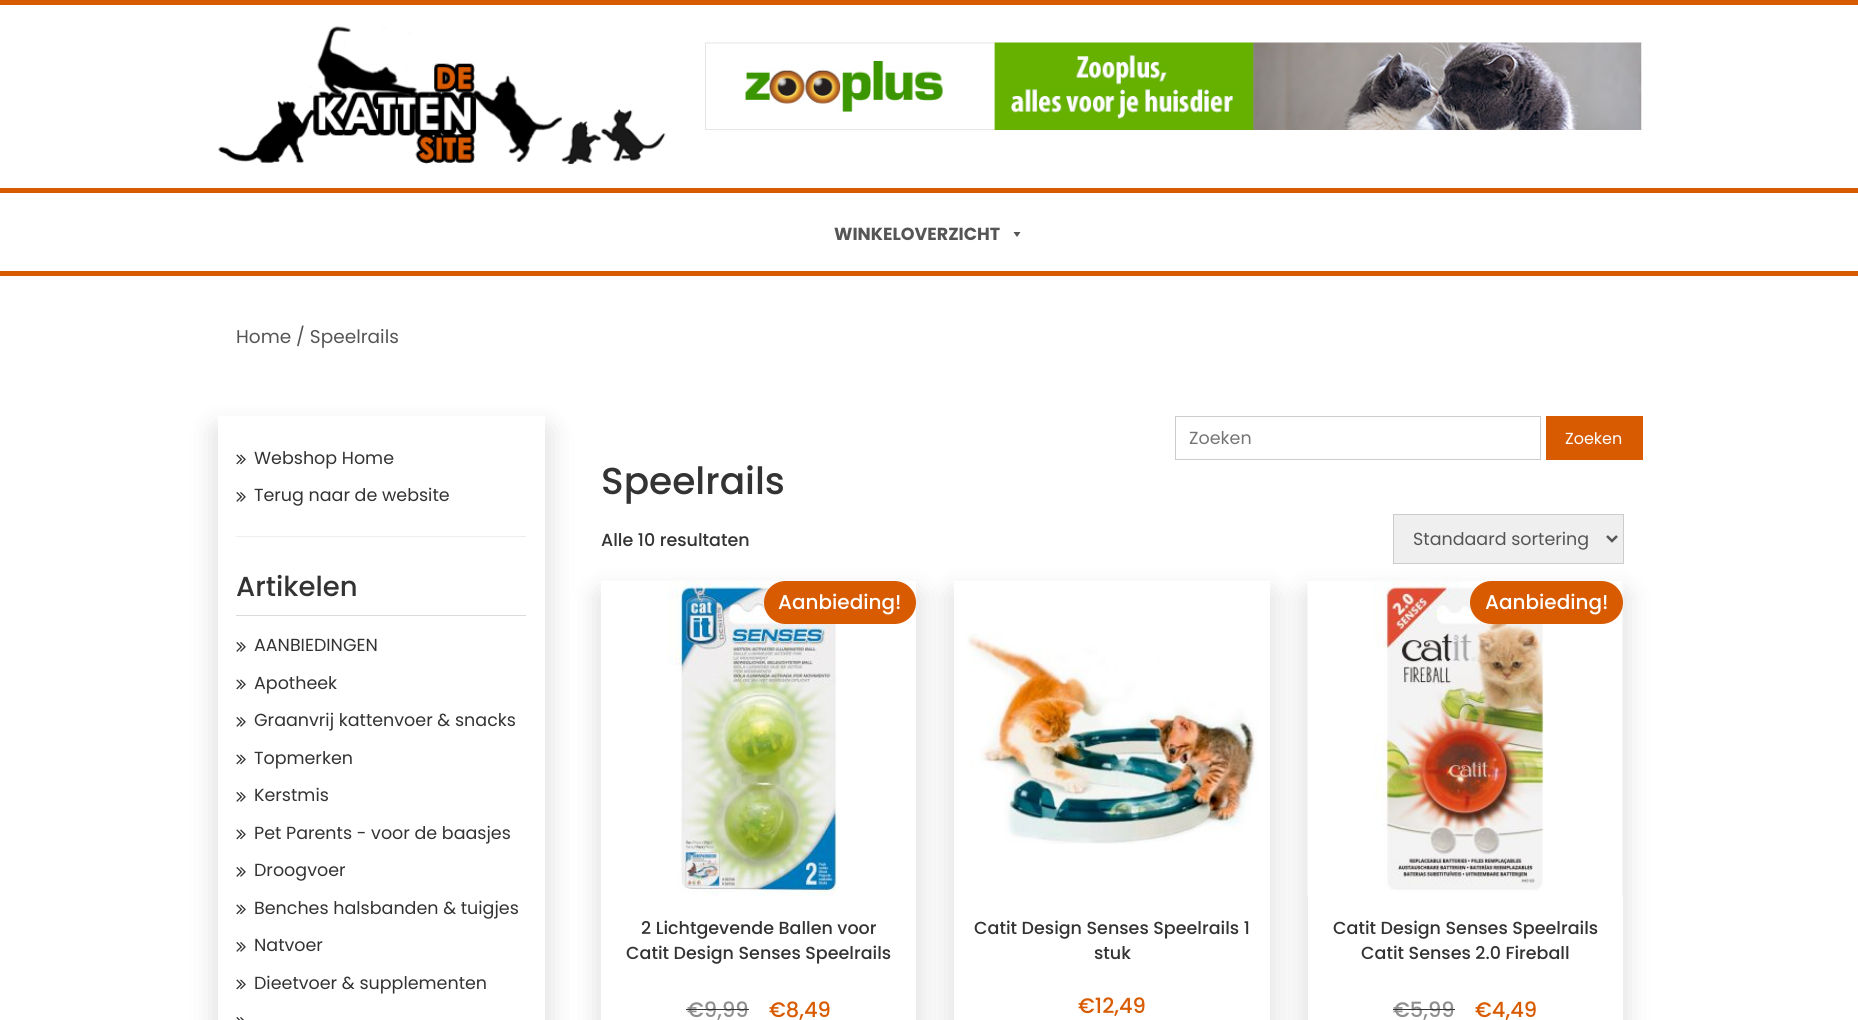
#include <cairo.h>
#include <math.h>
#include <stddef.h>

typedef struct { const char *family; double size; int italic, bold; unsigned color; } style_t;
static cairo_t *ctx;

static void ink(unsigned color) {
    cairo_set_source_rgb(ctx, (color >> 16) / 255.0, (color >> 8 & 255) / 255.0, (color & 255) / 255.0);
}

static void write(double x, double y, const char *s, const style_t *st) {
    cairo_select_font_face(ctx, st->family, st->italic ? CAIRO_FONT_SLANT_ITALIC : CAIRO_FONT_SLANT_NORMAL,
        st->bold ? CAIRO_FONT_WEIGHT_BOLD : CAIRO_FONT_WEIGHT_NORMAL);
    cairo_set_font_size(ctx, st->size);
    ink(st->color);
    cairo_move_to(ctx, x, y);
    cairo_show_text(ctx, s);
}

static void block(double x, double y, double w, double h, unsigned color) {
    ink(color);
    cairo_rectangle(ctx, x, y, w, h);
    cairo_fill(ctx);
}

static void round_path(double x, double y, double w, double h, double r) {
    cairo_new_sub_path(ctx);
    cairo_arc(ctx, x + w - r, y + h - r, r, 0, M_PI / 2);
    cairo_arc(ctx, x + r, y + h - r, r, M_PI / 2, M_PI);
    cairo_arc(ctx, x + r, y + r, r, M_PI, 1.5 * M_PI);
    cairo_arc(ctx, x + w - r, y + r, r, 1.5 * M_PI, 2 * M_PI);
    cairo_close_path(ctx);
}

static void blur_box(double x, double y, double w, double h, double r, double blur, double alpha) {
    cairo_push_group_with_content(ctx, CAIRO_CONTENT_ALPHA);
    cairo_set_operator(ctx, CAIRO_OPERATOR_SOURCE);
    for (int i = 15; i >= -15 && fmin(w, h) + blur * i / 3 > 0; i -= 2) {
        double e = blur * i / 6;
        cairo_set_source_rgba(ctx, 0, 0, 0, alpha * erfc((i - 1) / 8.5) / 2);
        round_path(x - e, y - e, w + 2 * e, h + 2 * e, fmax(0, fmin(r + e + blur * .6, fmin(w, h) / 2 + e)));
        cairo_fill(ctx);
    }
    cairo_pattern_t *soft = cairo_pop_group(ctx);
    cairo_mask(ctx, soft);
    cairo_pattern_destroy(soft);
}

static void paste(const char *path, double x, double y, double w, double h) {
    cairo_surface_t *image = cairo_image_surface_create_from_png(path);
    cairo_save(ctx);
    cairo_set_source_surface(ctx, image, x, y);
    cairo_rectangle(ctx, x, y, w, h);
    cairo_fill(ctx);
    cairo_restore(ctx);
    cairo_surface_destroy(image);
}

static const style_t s1 = {"Poppins", 17.5, 0, 1, 0x555555};
static const style_t s2 = {"Poppins", 18.5, 0, 0, 0x555555};
static const style_t s3 = {"Poppins", 17.5, 0, 0, 0x333333};
static const style_t s4 = {"Poppins Medium", 27.5, 0, 0, 0x333333};
static const style_t s5 = {"Poppins", 17.5, 0, 0, 0x757575};
static const style_t s6 = {"Poppins", 16, 0, 0, 0xffffff};
static const style_t s7 = {"Poppins Medium", 37.5, 0, 0, 0x333333};
static const style_t s8 = {"Poppins Medium", 17.5, 0, 0, 0x333333};
static const style_t s9 = {"Poppins", 17.5, 0, 0, 0x555555};
static const style_t s10 = {"Poppins Medium", 20, 0, 0, 0xffffff};
static const style_t s11 = {"Poppins Medium", 21, 0, 0, 0x908e8e};
static const style_t s12 = {"Poppins Medium", 21, 0, 0, 0xd85b01};

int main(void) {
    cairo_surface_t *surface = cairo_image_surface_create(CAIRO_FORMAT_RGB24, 1858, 1020);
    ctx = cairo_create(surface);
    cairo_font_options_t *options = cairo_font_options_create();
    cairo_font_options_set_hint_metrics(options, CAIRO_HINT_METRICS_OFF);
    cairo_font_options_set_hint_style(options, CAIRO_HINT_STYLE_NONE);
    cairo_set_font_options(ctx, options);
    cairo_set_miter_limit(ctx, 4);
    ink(0xffffff);
    cairo_paint(ctx);
    block(0, 0, 1858, 5, 0xd85b01);
    paste("pic1.png", 218, 26, 448, 139);
    paste("pic2.png", 705, 42, 937, 88);
    block(0, 188, 1858, 5, 0xd85b01);
    block(0, 271, 1858, 5, 0xd85b01);
    write(834, 240, "WINKELOVERZICHT", &s1);
    cairo_new_path(ctx);
    cairo_move_to(ctx, 1020.5, 232);
    cairo_line_to(ctx, 1017, 237);
    cairo_line_to(ctx, 1013.5, 232);
    cairo_close_path(ctx);
    cairo_fill(ctx);
    write(236, 343, "Home / Speelrails", &s2);
    cairo_save(ctx);
    cairo_set_fill_rule(ctx, CAIRO_FILL_RULE_EVEN_ODD);
    cairo_new_path(ctx);
    cairo_move_to(ctx, 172, 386);
    cairo_line_to(ctx, 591, 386);
    cairo_line_to(ctx, 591, 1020);
    cairo_line_to(ctx, 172, 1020);
    cairo_close_path(ctx);
    cairo_move_to(ctx, 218, 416);
    cairo_line_to(ctx, 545, 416);
    cairo_line_to(ctx, 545, 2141);
    cairo_line_to(ctx, 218, 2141);
    cairo_close_path(ctx);
    cairo_clip(ctx);
    ink(0x000000);
    blur_box(215, 429, 333, 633, 0, 14, 0.14);
    cairo_restore(ctx);
    paste("pic3.png", 236, 454, 10, 11);
    write(254, 464, "Webshop Home", &s3);
    paste("pic4.png", 236, 492, 10, 10);
    write(254, 501, "Terug naar de website", &s3);
    block(236, 536, 290, 1, 0xeeeeee);
    block(236, 615, 290, 1, 0xdadada);
    write(236, 596, "Artikelen", &s4);
    paste("pic4.png", 236, 642, 10, 10);
    write(254, 651, "AANBIEDINGEN", &s3);
    paste("pic3.png", 236, 679, 10, 11);
    write(254, 689, "Apotheek", &s3);
    paste("pic4.png", 236, 717, 10, 10);
    write(254, 726, "Graanvrij kattenvoer & snacks", &s3);
    paste("pic3.png", 236, 754, 10, 11);
    write(254, 764, "Topmerken", &s3);
    paste("pic4.png", 236, 792, 10, 10);
    write(254, 801, "Kerstmis", &s3);
    paste("pic3.png", 236, 829, 10, 11);
    write(254, 839, "Pet Parents - voor de baasjes", &s3);
    paste("pic4.png", 236, 867, 10, 10);
    write(254, 876, "Droogvoer", &s3);
    paste("pic3.png", 236, 904, 10, 11);
    write(254, 914, "Benches halsbanden & tuigjes", &s3);
    paste("pic4.png", 236, 942, 10, 10);
    write(254, 951, "Natvoer", &s3);
    paste("pic3.png", 236, 979, 10, 11);
    write(254, 989, "Dieetvoer & supplementen", &s3);
    paste("pic5.png", 236, 1017, 8, 3);
    cairo_rectangle(ctx, 1175.5, 416.5, 365, 43);
    ink(0xcccccc);
    cairo_set_line_width(ctx, 1);
    cairo_stroke(ctx);
    write(1189, 444, "Zoeken", &s5);
    block(1546, 416, 97, 44, 0xd85b01);
    write(1565, 444, "Zoeken", &s6);
    write(601, 494, "Speelrails", &s7);
    write(601, 546, "Alle 10 resultaten", &s8);
    ink(0xefefef);
    cairo_rectangle(ctx, 1393.5, 514.5, 230, 49);
    cairo_fill_preserve(ctx);
    ink(0xcccccc);
    cairo_stroke(ctx);
    cairo_new_path(ctx);
    cairo_move_to(ctx, 1607, 536);
    cairo_line_to(ctx, 1612, 541);
    cairo_line_to(ctx, 1617, 536);
    ink(0x555555);
    cairo_set_line_width(ctx, 2.5);
    cairo_stroke(ctx);
    write(1413, 545, "Standaard sortering", &s9);
    cairo_save(ctx);
    cairo_set_fill_rule(ctx, CAIRO_FILL_RULE_EVEN_ODD);
    cairo_new_path(ctx);
    cairo_move_to(ctx, 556, 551);
    cairo_line_to(ctx, 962, 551);
    cairo_line_to(ctx, 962, 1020);
    cairo_line_to(ctx, 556, 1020);
    cairo_close_path(ctx);
    cairo_move_to(ctx, 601, 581);
    cairo_line_to(ctx, 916, 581);
    cairo_line_to(ctx, 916, 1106);
    cairo_line_to(ctx, 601, 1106);
    cairo_close_path(ctx);
    cairo_clip(ctx);
    ink(0x000000);
    blur_box(599, 594, 320, 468, 0, 14, 0.14);
    cairo_restore(ctx);
    paste("pic6.png", 668, 581, 170, 315);
    ink(0xd85b01);
    round_path(764, 581, 152, 43, 21.5);
    cairo_fill(ctx);
    write(778, 609, "Aanbieding!", &s10);
    block(601, 896, 1, 124, 0xffffff);
    write(641, 934, "2 Lichtgevende Ballen voor", &s8);
    write(626, 959, "Catit Design Senses Speelrails", &s8);
    write(687, 1017, "€9,99", &s11);
    block(686, 1009, 63, 1, 0x333333);
    write(769, 1017, "€8,49", &s12);
    cairo_save(ctx);
    cairo_set_fill_rule(ctx, CAIRO_FILL_RULE_EVEN_ODD);
    cairo_new_path(ctx);
    cairo_move_to(ctx, 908, 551);
    cairo_line_to(ctx, 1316, 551);
    cairo_line_to(ctx, 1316, 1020);
    cairo_line_to(ctx, 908, 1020);
    cairo_close_path(ctx);
    cairo_move_to(ctx, 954, 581);
    cairo_line_to(ctx, 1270, 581);
    cairo_line_to(ctx, 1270, 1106);
    cairo_line_to(ctx, 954, 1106);
    cairo_close_path(ctx);
    cairo_clip(ctx);
    ink(0x000000);
    blur_box(951, 594, 322, 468, 0, 14, 0.14);
    cairo_restore(ctx);
    paste("pic7.png", 967, 633, 290, 211);
    write(974, 934, "Catit Design Senses Speelrails 1", &s8);
    write(1094, 959, "stuk", &s8);
    write(1078, 1013, "€12,49", &s12);
    ink(0x000000);
    blur_box(1305, 594, 320, 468, 0, 14, 0.14);
    paste("pic8.png", 1307, 581, 316, 315);
    ink(0xd85b01);
    round_path(1470, 581, 153, 43, 21.5);
    cairo_fill(ctx);
    write(1485, 609, "Aanbieding!", &s10);
    block(1308, 896, 315, 124, 0xffffff);
    write(1333, 934, "Catit Design Senses Speelrails", &s8);
    write(1361, 959, "Catit Senses 2.0 Fireball", &s8);
    write(1393, 1017, "€5,99", &s11);
    block(1393, 1009, 62, 1, 0x333333);
    write(1475, 1017, "€4,49", &s12);
    cairo_surface_write_to_png(surface, "screenshot.png");
    cairo_font_options_destroy(options);
    cairo_destroy(ctx);
    cairo_surface_destroy(surface);
    return 0;
}
